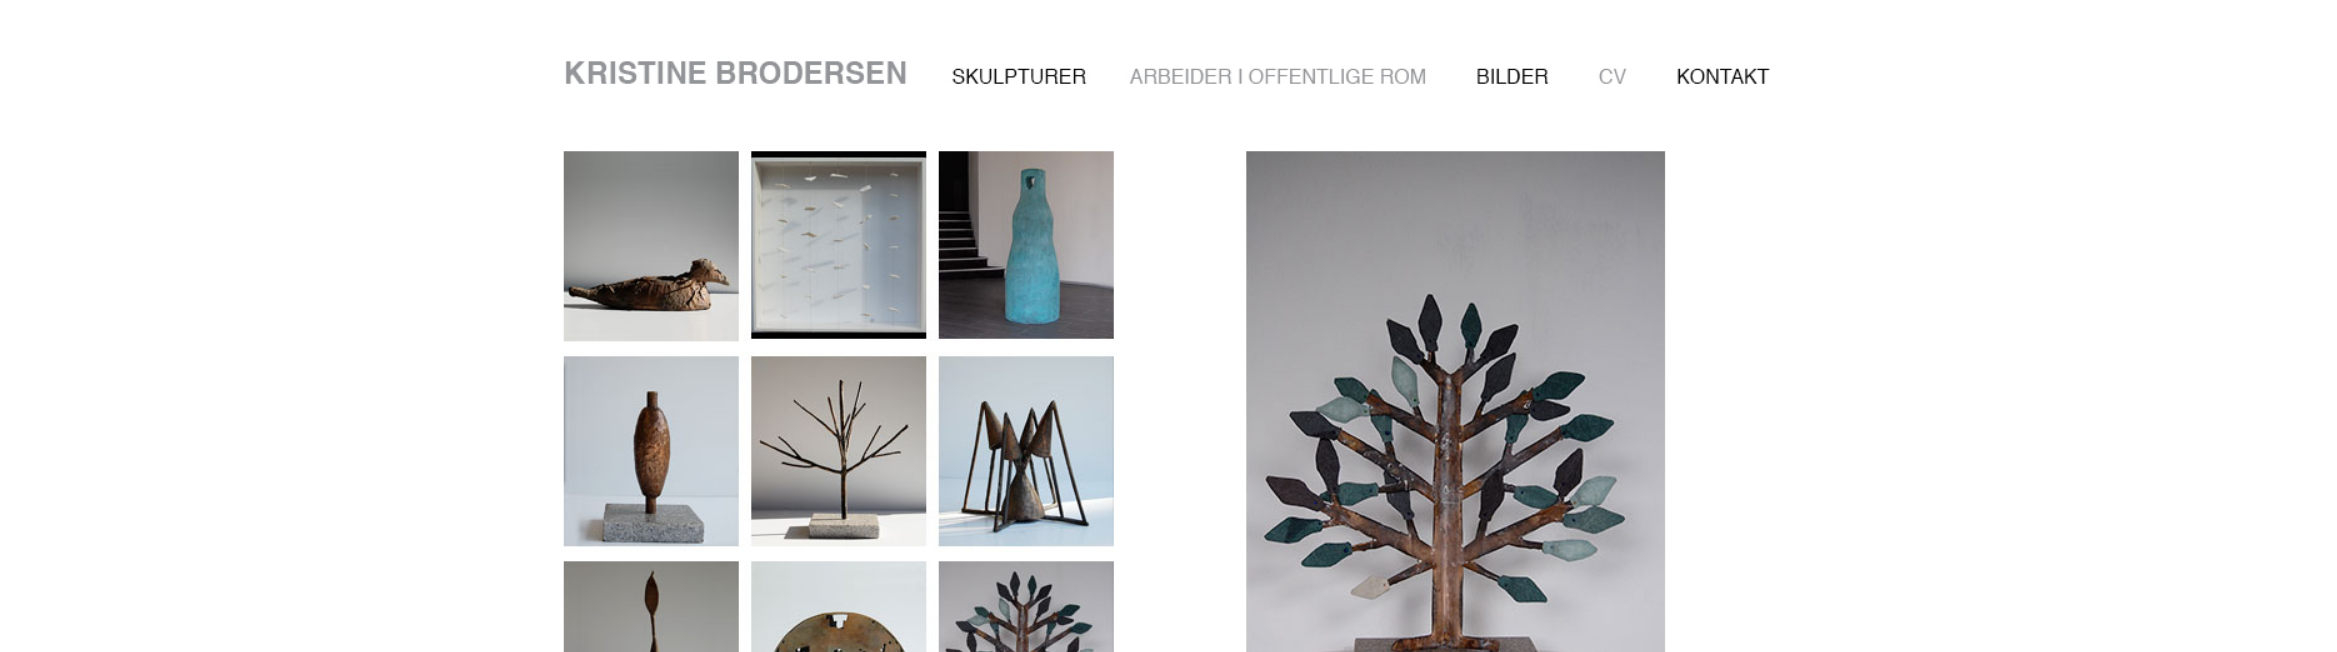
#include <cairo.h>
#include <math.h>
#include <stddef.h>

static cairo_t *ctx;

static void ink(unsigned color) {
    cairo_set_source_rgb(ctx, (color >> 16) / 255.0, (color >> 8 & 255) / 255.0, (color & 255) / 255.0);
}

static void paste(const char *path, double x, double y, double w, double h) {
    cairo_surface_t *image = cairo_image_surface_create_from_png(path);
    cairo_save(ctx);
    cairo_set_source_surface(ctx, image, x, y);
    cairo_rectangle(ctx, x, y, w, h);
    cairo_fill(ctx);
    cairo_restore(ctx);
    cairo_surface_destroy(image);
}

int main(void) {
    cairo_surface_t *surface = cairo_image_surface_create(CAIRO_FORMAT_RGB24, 2337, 652);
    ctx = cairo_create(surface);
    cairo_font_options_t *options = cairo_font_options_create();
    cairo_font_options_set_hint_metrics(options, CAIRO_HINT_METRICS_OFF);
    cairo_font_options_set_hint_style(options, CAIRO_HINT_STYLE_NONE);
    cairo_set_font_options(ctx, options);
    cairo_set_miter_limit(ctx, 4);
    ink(0xffffff);
    cairo_paint(ctx);
    paste("pic1.png", 565, 61, 1206, 23);
    paste("pic2.png", 563, 151, 551, 501);
    paste("pic3.png", 1246, 151, 420, 501);
    cairo_surface_write_to_png(surface, "screenshot.png");
    cairo_font_options_destroy(options);
    cairo_destroy(ctx);
    cairo_surface_destroy(surface);
    return 0;
}
